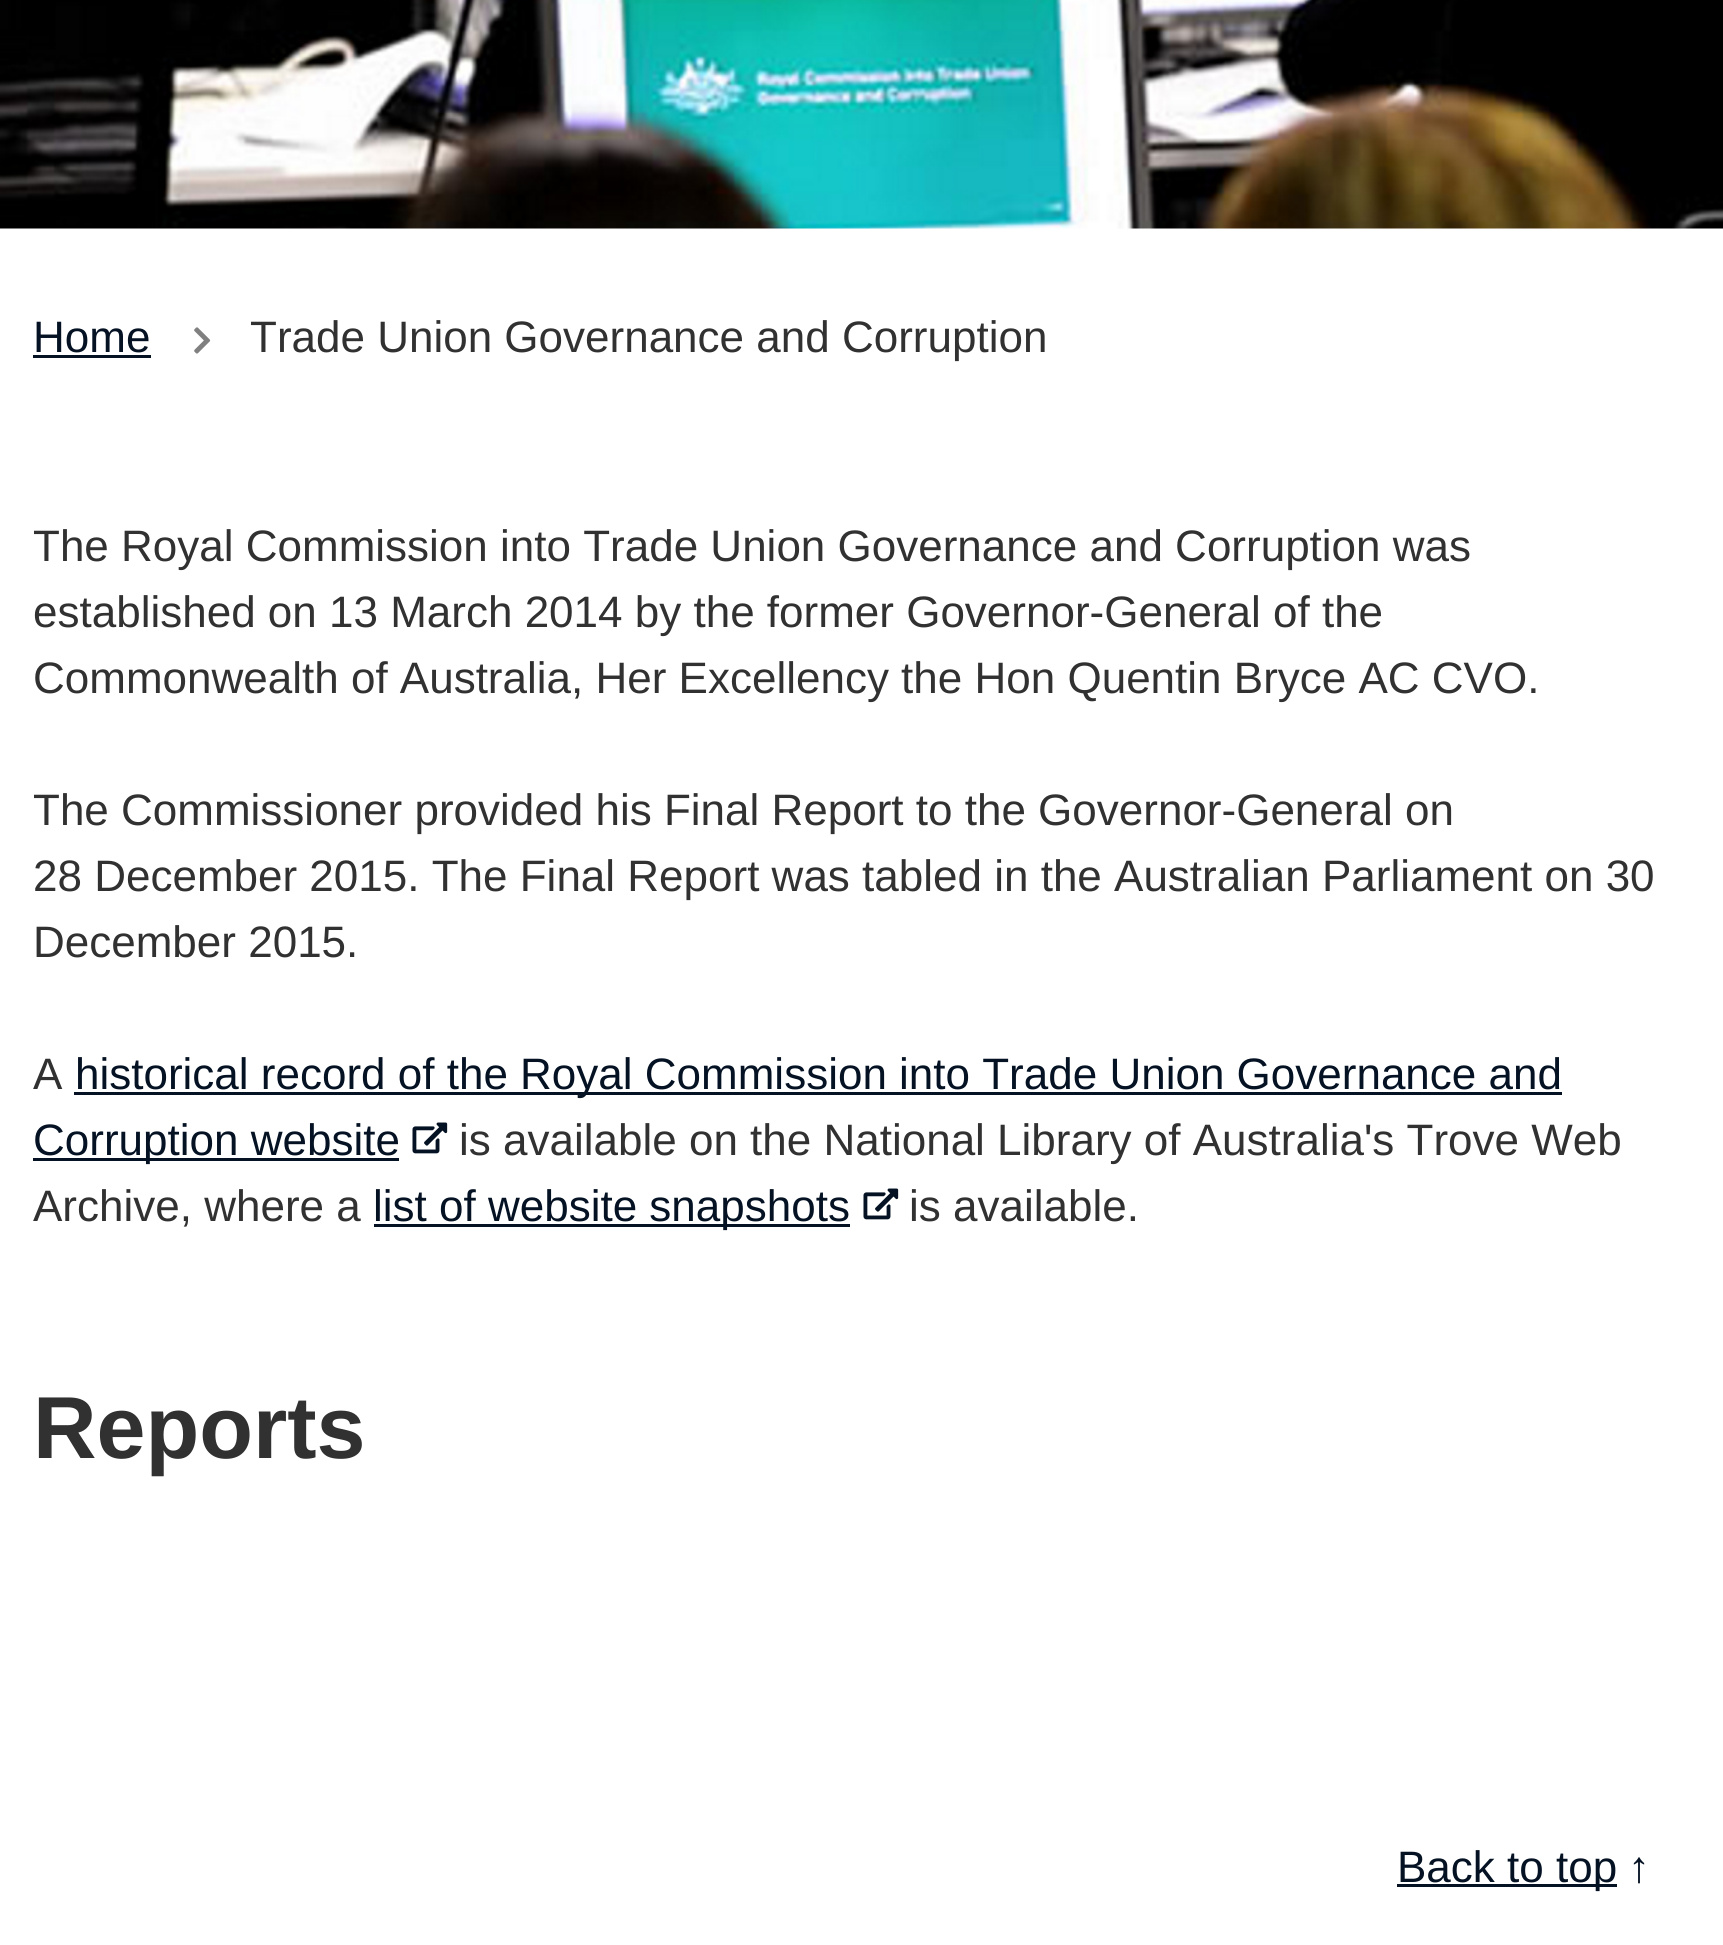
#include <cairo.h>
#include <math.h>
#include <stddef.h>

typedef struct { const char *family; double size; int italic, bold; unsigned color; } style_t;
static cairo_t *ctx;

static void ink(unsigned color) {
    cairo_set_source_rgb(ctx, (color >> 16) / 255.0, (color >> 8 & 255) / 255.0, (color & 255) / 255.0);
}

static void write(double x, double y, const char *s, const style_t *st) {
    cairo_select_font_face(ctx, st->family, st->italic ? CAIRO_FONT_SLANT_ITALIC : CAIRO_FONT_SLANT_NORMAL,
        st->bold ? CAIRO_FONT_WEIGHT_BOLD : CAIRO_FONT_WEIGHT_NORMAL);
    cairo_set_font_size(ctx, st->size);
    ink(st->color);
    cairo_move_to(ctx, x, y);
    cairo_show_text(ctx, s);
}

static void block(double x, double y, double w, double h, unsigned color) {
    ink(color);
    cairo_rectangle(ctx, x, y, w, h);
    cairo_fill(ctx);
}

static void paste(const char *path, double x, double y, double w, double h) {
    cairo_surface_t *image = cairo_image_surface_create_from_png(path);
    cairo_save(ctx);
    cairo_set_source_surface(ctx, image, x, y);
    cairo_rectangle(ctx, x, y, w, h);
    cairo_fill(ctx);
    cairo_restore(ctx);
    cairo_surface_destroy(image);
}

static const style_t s1 = {"Liberation Sans", 44, 0, 0, 0x041224};
static const style_t s2 = {"Liberation Sans", 44, 0, 0, 0x313131};
static const style_t s3 = {"Liberation Sans", 88, 0, 1, 0x313131};

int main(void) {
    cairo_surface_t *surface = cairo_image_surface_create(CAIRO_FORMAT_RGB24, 1723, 1945);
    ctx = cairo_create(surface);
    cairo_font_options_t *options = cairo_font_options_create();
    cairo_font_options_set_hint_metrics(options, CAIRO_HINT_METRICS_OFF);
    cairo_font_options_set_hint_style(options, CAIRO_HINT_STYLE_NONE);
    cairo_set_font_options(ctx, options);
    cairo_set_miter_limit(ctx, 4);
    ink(0xffffff);
    cairo_paint(ctx);
    paste("pic1.png", 0, 0, 1723, 229);
    write(33, 352, "Home", &s1);
    block(33, 355, 118, 3, 0x041224);
    paste("pic2.png", 194, 327, 17, 27);
    write(250, 352, "Trade Union Governance and Corruption", &s2);
    write(33, 561, "The Royal Commission into Trade Union Governance and Corruption was", &s2);
    write(33, 627, "established on 13 March 2014 by the former Governor-General of the", &s2);
    write(33, 693, "Commonwealth of Australia, Her Excellency the Hon Quentin Bryce AC CVO.", &s2);
    write(33, 825, "The Commissioner provided his Final Report to the Governor-General on", &s2);
    write(33, 891, "28 December 2015. The Final Report was tabled in the Australian Parliament on 30", &s2);
    write(33, 957, "December 2015.", &s2);
    block(74, 1092, 1488, 3, 0x041224);
    write(75, 1089, "historical record of the Royal Commission into Trade Union Governance and", &s1);
    block(33, 1158, 366, 3, 0x041224);
    write(33, 1155, "Corruption website", &s1);
    paste("pic3.png", 412, 1122, 36, 32);
    write(33, 1089, "A", &s2);
    write(459, 1155, "is available on the National Library of Australia's Trove Web", &s2);
    write(33, 1221, "Archive, where a", &s2);
    block(374, 1224, 476, 3, 0x041224);
    write(373, 1221, "list of website snapshots", &s1);
    paste("pic3.png", 863, 1188, 36, 32);
    write(909, 1221, "is available.", &s2);
    write(33, 1458, "Reports", &s3);
    block(1397, 1884, 220, 3, 0x041224);
    write(1397, 1882, "Back to top", &s1);
    write(1628, 1882, "↑", &s1);
    cairo_surface_write_to_png(surface, "screenshot.png");
    cairo_font_options_destroy(options);
    cairo_destroy(ctx);
    cairo_surface_destroy(surface);
    return 0;
}
